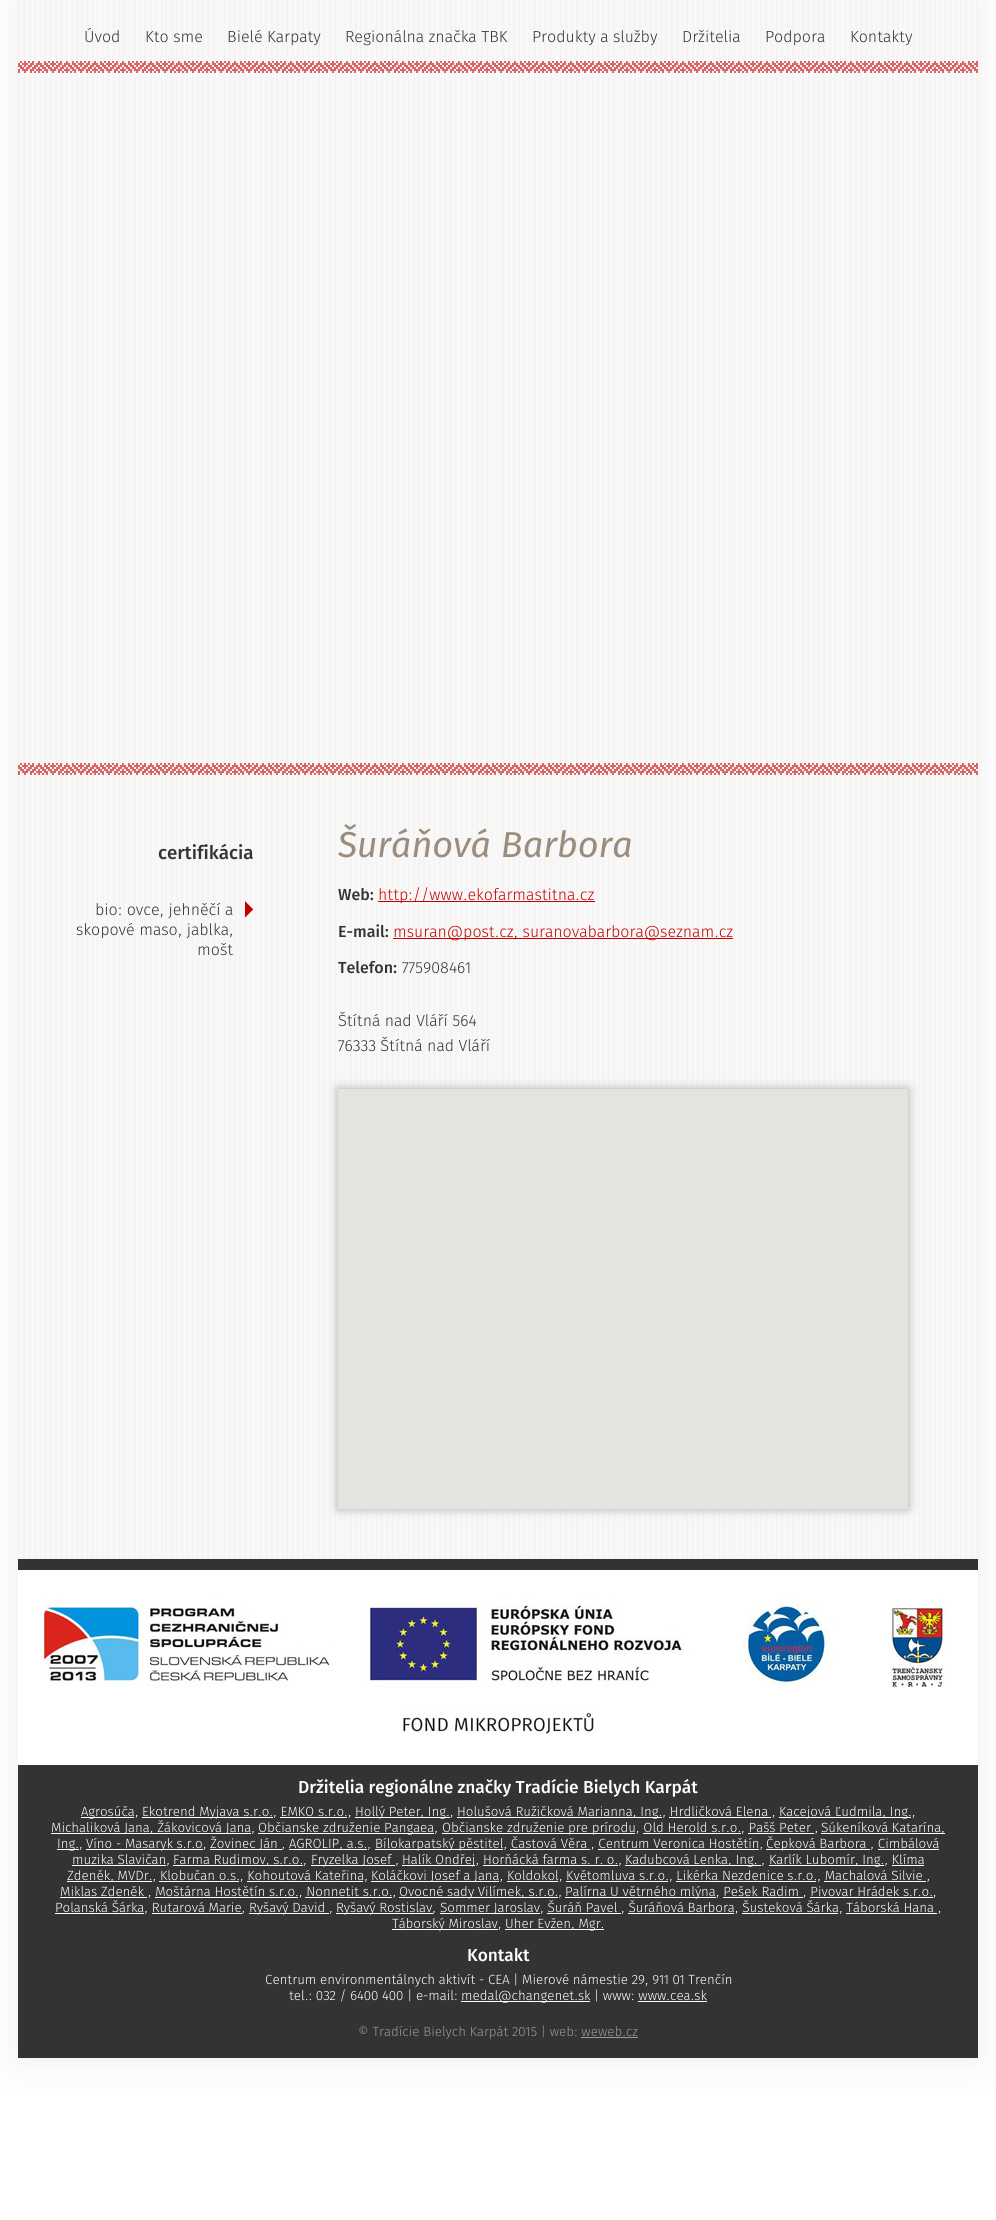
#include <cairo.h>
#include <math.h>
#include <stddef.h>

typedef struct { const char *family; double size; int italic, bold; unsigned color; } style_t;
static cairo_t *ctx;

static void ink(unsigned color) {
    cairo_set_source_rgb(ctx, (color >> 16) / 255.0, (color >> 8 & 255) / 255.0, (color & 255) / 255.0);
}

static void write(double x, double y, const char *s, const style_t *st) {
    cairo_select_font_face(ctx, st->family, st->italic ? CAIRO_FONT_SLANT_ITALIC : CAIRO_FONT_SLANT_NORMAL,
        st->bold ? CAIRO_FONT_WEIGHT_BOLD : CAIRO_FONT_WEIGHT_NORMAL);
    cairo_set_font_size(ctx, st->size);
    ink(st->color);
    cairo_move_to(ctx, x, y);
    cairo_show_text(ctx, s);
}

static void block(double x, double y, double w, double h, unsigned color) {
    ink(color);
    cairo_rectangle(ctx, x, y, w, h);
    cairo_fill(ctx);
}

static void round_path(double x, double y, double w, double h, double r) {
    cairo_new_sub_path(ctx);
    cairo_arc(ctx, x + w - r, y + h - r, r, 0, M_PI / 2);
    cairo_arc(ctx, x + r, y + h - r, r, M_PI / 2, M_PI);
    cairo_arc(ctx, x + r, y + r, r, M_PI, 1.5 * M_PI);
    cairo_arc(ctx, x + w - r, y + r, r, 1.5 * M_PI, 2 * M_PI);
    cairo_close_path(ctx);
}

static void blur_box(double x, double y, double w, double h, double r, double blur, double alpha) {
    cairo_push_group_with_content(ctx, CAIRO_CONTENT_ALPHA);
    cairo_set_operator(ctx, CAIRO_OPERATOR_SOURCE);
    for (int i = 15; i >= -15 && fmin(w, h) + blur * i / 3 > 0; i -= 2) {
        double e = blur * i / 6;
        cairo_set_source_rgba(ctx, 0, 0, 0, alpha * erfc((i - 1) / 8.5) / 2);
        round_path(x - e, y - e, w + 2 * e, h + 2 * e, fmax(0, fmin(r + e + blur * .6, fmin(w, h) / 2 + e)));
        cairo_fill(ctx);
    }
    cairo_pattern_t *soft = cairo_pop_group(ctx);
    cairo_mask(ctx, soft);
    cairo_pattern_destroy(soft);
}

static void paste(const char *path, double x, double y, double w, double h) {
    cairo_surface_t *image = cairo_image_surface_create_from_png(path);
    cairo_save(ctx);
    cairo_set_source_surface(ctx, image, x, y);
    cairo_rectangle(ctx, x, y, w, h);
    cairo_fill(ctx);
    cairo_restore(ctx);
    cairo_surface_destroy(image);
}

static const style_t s1 = {"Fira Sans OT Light", 16, 0, 0, 0x333333};
static const style_t s2 = {"Fira Sans OT Medium", 18.75, 0, 0, 0x333333};
static const style_t s3 = {"Fira Sans OT", 36, 1, 0, 0x9b8c7c};
static const style_t s4 = {"Fira Sans OT Medium", 16, 0, 0, 0x333333};
static const style_t s5 = {"Fira Sans OT Light", 16, 0, 0, 0xc40000};
static const style_t s6 = {"Fira Sans OT Medium", 17.3, 0, 0, 0xffffff};
static const style_t s7 = {"Fira Sans OT Light", 13.35, 0, 0, 0xffffff};
static const style_t s8 = {"Fira Sans OT Light", 13.35, 0, 0, 0x999999};

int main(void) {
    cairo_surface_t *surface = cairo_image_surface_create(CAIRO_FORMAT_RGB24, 996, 2220);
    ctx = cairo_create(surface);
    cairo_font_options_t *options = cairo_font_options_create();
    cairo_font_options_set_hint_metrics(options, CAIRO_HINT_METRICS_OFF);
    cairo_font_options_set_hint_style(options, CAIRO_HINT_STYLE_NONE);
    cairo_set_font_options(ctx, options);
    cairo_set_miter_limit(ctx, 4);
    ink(0xffffff);
    cairo_paint(ctx);
    ink(0xeeeeee);
    blur_box(18, 0, 960, 2058, 0, 20, 1);
    paste("pic1.png", 18, 0, 960, 1559);
    write(84, 42, "Úvod", &s1);
    write(145, 42, "Kto sme", &s1);
    write(227, 42, "Bielé Karpaty", &s1);
    write(345, 42, "Regionálna značka TBK", &s1);
    write(532, 42, "Produkty a služby", &s1);
    write(682, 42, "Držitelia", &s1);
    write(765, 42, "Podpora", &s1);
    write(850, 42, "Kontakty", &s1);
    paste("pic2.png", 18, 61, 960, 12);
    paste("pic2.png", 18, 763, 960, 12);
    write(158, 859, "certifikácia", &s2);
    paste("pic3.png", 245, 901, 8, 17);
    write(95, 915, "bio: ovce, jehněčí a", &s1);
    write(76, 935, "skopové maso, jablka,", &s1);
    write(197, 955, "mošt", &s1);
    write(338, 857, "Šuráňová Barbora", &s3);
    write(338, 900, "Web:", &s4);
    block(378, 901, 217, 1, 0xc40000);
    write(378, 900, "http://www.ekofarmastitna.cz", &s5);
    write(338, 937, "E-mail:", &s4);
    block(393, 938, 340, 1, 0xc40000);
    write(393, 937, "msuran@post.cz, suranovabarbora@seznam.cz", &s5);
    write(338, 973, "Telefon:", &s4);
    write(402, 973, "775908461", &s1);
    write(338, 1026, "Štítná nad Vláří 564", &s1);
    write(338, 1051, "76333 Štítná nad Vláří", &s1);
    ink(0xaaaaaa);
    blur_box(338, 1089, 570, 420, 0, 5, 1);
    block(338, 1089, 570, 420, 0xe5e3df);
    block(18, 1559, 960, 499, 0x333333);
    paste("pic4.png", 18, 1570, 960, 195);
    write(298, 1793, "Držitelia regionálne značky Tradície Bielych Karpát", &s6);
    block(81, 1817, 53, 1, 0xffffff);
    write(81, 1816, "Agrosúča,", &s7);
    block(142, 1817, 131, 1, 0xffffff);
    write(142, 1816, "Ekotrend Myjava s.r.o., EMKO s.r.o.,", &s7);
    block(355, 1817, 95, 1, 0xffffff);
    write(355, 1816, "Hollý Peter, Ing.,", &s7);
    block(457, 1817, 205, 1, 0xffffff);
    write(457, 1816, "Holušová Ružičková Marianna, Ing., Hrdličková Elena ,", &s7);
    block(779, 1817, 132, 1, 0xffffff);
    write(779, 1816, "Kacejová Ľudmila, Ing.,", &s7);
    block(280, 1817, 67, 1, 0xffffff);
    block(669, 1817, 102, 1, 0xffffff);
    block(51, 1833, 200, 1, 0xffffff);
    write(51, 1832, "Michaliková Jana, Žákovicová Jana,", &s7);
    block(258, 1833, 176, 1, 0xffffff);
    write(258, 1832, "Občianske združenie Pangaea,", &s7);
    block(442, 1833, 193, 1, 0xffffff);
    write(442, 1832, "Občianske združenie pre prírodu, Old Herold s.r.o., Pašš Peter ,", &s7);
    block(821, 1833, 124, 1, 0xffffff);
    write(821, 1832, "Súkeníková Katarína,", &s7);
    block(643, 1833, 98, 1, 0xffffff);
    block(748, 1833, 66, 1, 0xffffff);
    block(57, 1849, 22, 1, 0xffffff);
    write(57, 1848, "Ing.,", &s7);
    block(86, 1849, 117, 1, 0xffffff);
    write(86, 1848, "Víno - Masaryk s.r.o,", &s7);
    block(210, 1849, 72, 1, 0xffffff);
    write(210, 1848, "Žovinec Ján ,", &s7);
    block(289, 1849, 78, 1, 0xffffff);
    write(289, 1848, "AGROLIP, a.s.,", &s7);
    block(375, 1849, 128, 1, 0xffffff);
    write(375, 1848, "Bílokarpatský pěstitel, Častová Věra , Centrum Veronica Hostětín,", &s7);
    block(766, 1849, 104, 1, 0xffffff);
    write(766, 1848, "Čepková Barbora , Cimbálová", &s7);
    block(510, 1849, 80, 1, 0xffffff);
    block(598, 1849, 161, 1, 0xffffff);
    block(72, 1865, 94, 1, 0xffffff);
    write(72, 1864, "muzika Slavičan,", &s7);
    block(878, 1849, 61, 1, 0xffffff);
    block(173, 1865, 130, 1, 0xffffff);
    write(173, 1864, "Farma Rudimov, s.r.o.,", &s7);
    block(311, 1865, 84, 1, 0xffffff);
    write(311, 1864, "Fryzelka Josef ,", &s7);
    block(402, 1865, 73, 1, 0xffffff);
    write(402, 1864, "Halík Ondřej, Horňácká farma s. r. o.,", &s7);
    block(625, 1865, 136, 1, 0xffffff);
    write(625, 1864, "Kadubcová Lenka, Ing. ,", &s7);
    block(769, 1865, 115, 1, 0xffffff);
    write(769, 1864, "Karlík Lubomír, Ing., Klíma", &s7);
    block(483, 1865, 135, 1, 0xffffff);
    block(67, 1881, 85, 1, 0xffffff);
    write(67, 1880, "Zdeněk, MVDr., Klobučan o.s., Kohoutová Kateřina,", &s7);
    block(892, 1865, 32, 1, 0xffffff);
    block(371, 1881, 128, 1, 0xffffff);
    write(371, 1880, "Koláčkovi Josef a Jana, Koldokol, Květomluva s.r.o., Likérka Nezdenice s.r.o., Machalová Silvie ,", &s7);
    block(159, 1881, 80, 1, 0xffffff);
    block(247, 1881, 116, 1, 0xffffff);
    block(507, 1881, 51, 1, 0xffffff);
    block(566, 1881, 102, 1, 0xffffff);
    block(676, 1881, 140, 1, 0xffffff);
    block(824, 1881, 102, 1, 0xffffff);
    block(60, 1897, 87, 1, 0xffffff);
    write(60, 1896, "Miklas Zdeněk , Moštárna Hostětín s.r.o., Nonnetit s.r.o.,", &s7);
    block(399, 1897, 159, 1, 0xffffff);
    write(399, 1896, "Ovocné sady Vilímek, s.r.o.,", &s7);
    block(565, 1897, 151, 1, 0xffffff);
    write(565, 1896, "Palírna U větrného mlýna, Pešek Radim , Pivovar Hrádek s.r.o.,", &s7);
    block(155, 1897, 143, 1, 0xffffff);
    block(305, 1897, 87, 1, 0xffffff);
    block(723, 1897, 80, 1, 0xffffff);
    block(810, 1897, 123, 1, 0xffffff);
    block(55, 1913, 89, 1, 0xffffff);
    write(55, 1912, "Polanská Šárka, Rutarová Marie,", &s7);
    block(249, 1913, 80, 1, 0xffffff);
    write(249, 1912, "Ryšavý David ,", &s7);
    block(336, 1913, 97, 1, 0xffffff);
    write(336, 1912, "Ryšavý Rostislav,", &s7);
    block(440, 1913, 100, 1, 0xffffff);
    write(440, 1912, "Sommer Jaroslav, Šuráň Pavel , Šuráňová Barbora, Šusteková Šárka, Táborská Hana ,", &s7);
    block(152, 1913, 90, 1, 0xffffff);
    block(547, 1913, 74, 1, 0xffffff);
    block(628, 1913, 106, 1, 0xffffff);
    block(742, 1913, 96, 1, 0xffffff);
    block(846, 1913, 91, 1, 0xffffff);
    block(392, 1929, 106, 1, 0xffffff);
    write(392, 1928, "Táborský Miroslav,", &s7);
    block(505, 1929, 99, 1, 0xffffff);
    write(505, 1928, "Uher Evžen, Mgr.", &s7);
    write(467, 1961, "Kontakt", &s6);
    write(265, 1984, "Centrum environmentálnych aktivít - CEA | Mierové námestie 29, 911 01 Trenčín", &s7);
    write(289, 2000, "tel.: 032 / 6400 400 | e-mail:", &s7);
    block(461, 2001, 129, 1, 0xffffff);
    write(461, 2000, "medal@changenet.sk", &s7);
    write(594, 2000, "| www: www.cea.sk", &s7);
    block(638, 2001, 69, 1, 0xffffff);
    write(358, 2036, "© Tradície Bielych Karpát 2015 | web: weweb.cz", &s8);
    block(581, 2037, 57, 1, 0x999999);
    cairo_surface_write_to_png(surface, "screenshot.png");
    cairo_font_options_destroy(options);
    cairo_destroy(ctx);
    cairo_surface_destroy(surface);
    return 0;
}
